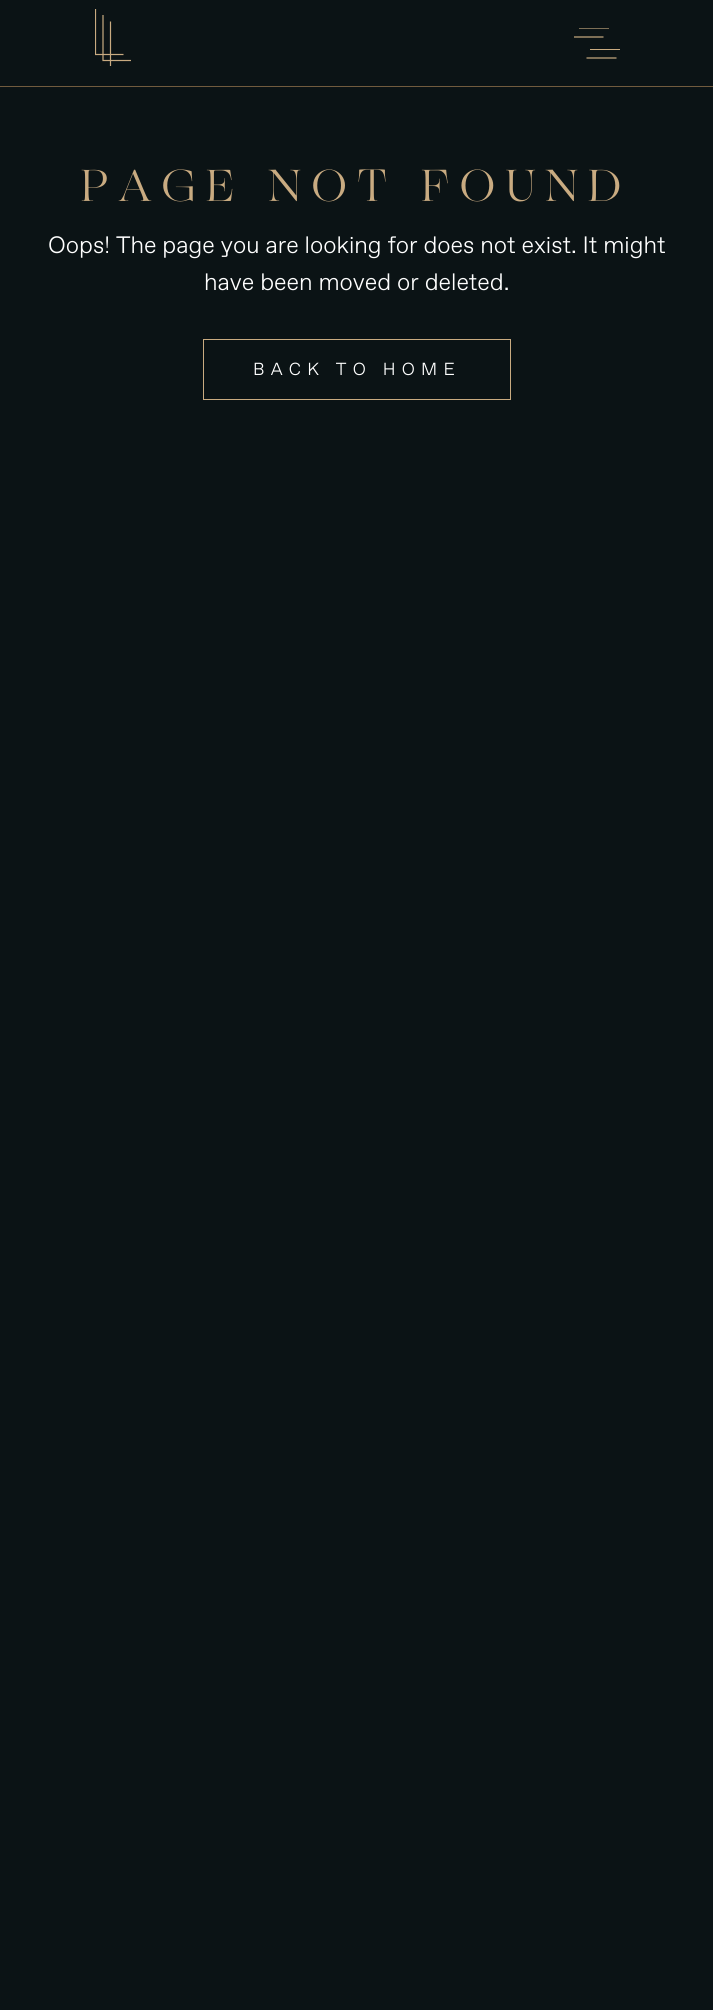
#include <cairo.h>
#include <math.h>
#include <stddef.h>

typedef struct { const char *family; double size; int italic, bold; unsigned color; } style_t;
static cairo_t *ctx;

static void ink(unsigned color) {
    cairo_set_source_rgb(ctx, (color >> 16) / 255.0, (color >> 8 & 255) / 255.0, (color & 255) / 255.0);
}

static void write(double x, double y, const char *s, const style_t *st) {
    cairo_select_font_face(ctx, st->family, st->italic ? CAIRO_FONT_SLANT_ITALIC : CAIRO_FONT_SLANT_NORMAL,
        st->bold ? CAIRO_FONT_WEIGHT_BOLD : CAIRO_FONT_WEIGHT_NORMAL);
    cairo_set_font_size(ctx, st->size);
    ink(st->color);
    cairo_move_to(ctx, x, y);
    cairo_show_text(ctx, s);
}

static void write_spaced(double x, double y, const char *s, double letter, double word) {
    cairo_move_to(ctx, x, y);
    while (*s) {
        char ch[5] = {0};
        int n = 0;
        do ch[n++] = *s++; while ((*s & 0xC0) == 0x80);
        cairo_show_text(ctx, ch);
        cairo_rel_move_to(ctx, letter + word * (*ch == ' '), 0);
    }
}

static void block(double x, double y, double w, double h, unsigned color) {
    ink(color);
    cairo_rectangle(ctx, x, y, w, h);
    cairo_fill(ctx);
}

static const style_t s1 = {"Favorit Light", 23.75, 0, 0, 0xffffff};

int main(void) {
    cairo_surface_t *surface = cairo_image_surface_create(CAIRO_FORMAT_RGB24, 713, 2010);
    ctx = cairo_create(surface);
    cairo_font_options_t *options = cairo_font_options_create();
    cairo_font_options_set_hint_metrics(options, CAIRO_HINT_METRICS_OFF);
    cairo_font_options_set_hint_style(options, CAIRO_HINT_STYLE_NONE);
    cairo_set_font_options(ctx, options);
    cairo_set_miter_limit(ctx, 4);
    ink(0x0b1315);
    cairo_paint(ctx);
    block(0, 86, 713, 1, 0x715b3e);
    cairo_save(ctx);
    cairo_rectangle(ctx, 95, 9, 43, 57);
    cairo_clip(ctx);
    cairo_new_path(ctx);
    cairo_move_to(ctx, 95.5, 9);
    cairo_line_to(ctx, 95.5, 54.5);
    cairo_line_to(ctx, 123.5, 54.5);
    ink(0xc9ab81);
    cairo_set_line_width(ctx, 1.2);
    cairo_stroke(ctx);
    cairo_restore(ctx);
    cairo_new_path(ctx);
    cairo_move_to(ctx, 103, 15);
    cairo_line_to(ctx, 103, 60.5);
    cairo_line_to(ctx, 131, 60.5);
    ink(0xc9ab81);
    cairo_set_line_width(ctx, 1.2);
    cairo_stroke(ctx);
    cairo_save(ctx);
    cairo_rectangle(ctx, 95, 9, 43, 57);
    cairo_clip(ctx);
    cairo_new_path(ctx);
    cairo_move_to(ctx, 110.5, 21.5);
    cairo_line_to(ctx, 110.5, 67);
    cairo_line_to(ctx, 138.5, 67);
    cairo_stroke(ctx);
    cairo_restore(ctx);
    cairo_save(ctx);
    cairo_rectangle(ctx, 574, 28, 46, 31);
    cairo_clip(ctx);
    cairo_new_path(ctx);
    cairo_move_to(ctx, 579, 28);
    cairo_line_to(ctx, 609, 28);
    cairo_stroke(ctx);
    cairo_restore(ctx);
    cairo_new_path(ctx);
    cairo_move_to(ctx, 574, 37);
    cairo_line_to(ctx, 603.5, 37);
    cairo_stroke(ctx);
    block(590, 49, 30, 1, 0xc9ab81);
    cairo_new_path(ctx);
    cairo_move_to(ctx, 586.5, 58);
    cairo_line_to(ctx, 616.5, 58);
    cairo_stroke(ctx);
    cairo_select_font_face(ctx, "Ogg", CAIRO_FONT_SLANT_NORMAL, CAIRO_FONT_WEIGHT_NORMAL);
    cairo_set_font_size(ctx, 45);
    write_spaced(81, 201, "PAGE NOT FOUND", 10.3, 0);
    write(48, 253, "Oops! The page you are looking for does not exist. It might", &s1);
    write(204, 290, "have been moved or deleted.", &s1);
    cairo_rectangle(ctx, 203.5, 339.5, 307, 60);
    ink(0xc9ab81);
    cairo_set_line_width(ctx, 1);
    cairo_stroke(ctx);
    cairo_set_font_size(ctx, 17.5);
    ink(0xffffff);
    write_spaced(253, 375, "BACK TO HOME", 6.25, 0);
    cairo_surface_write_to_png(surface, "screenshot.png");
    cairo_font_options_destroy(options);
    cairo_destroy(ctx);
    cairo_surface_destroy(surface);
    return 0;
}
